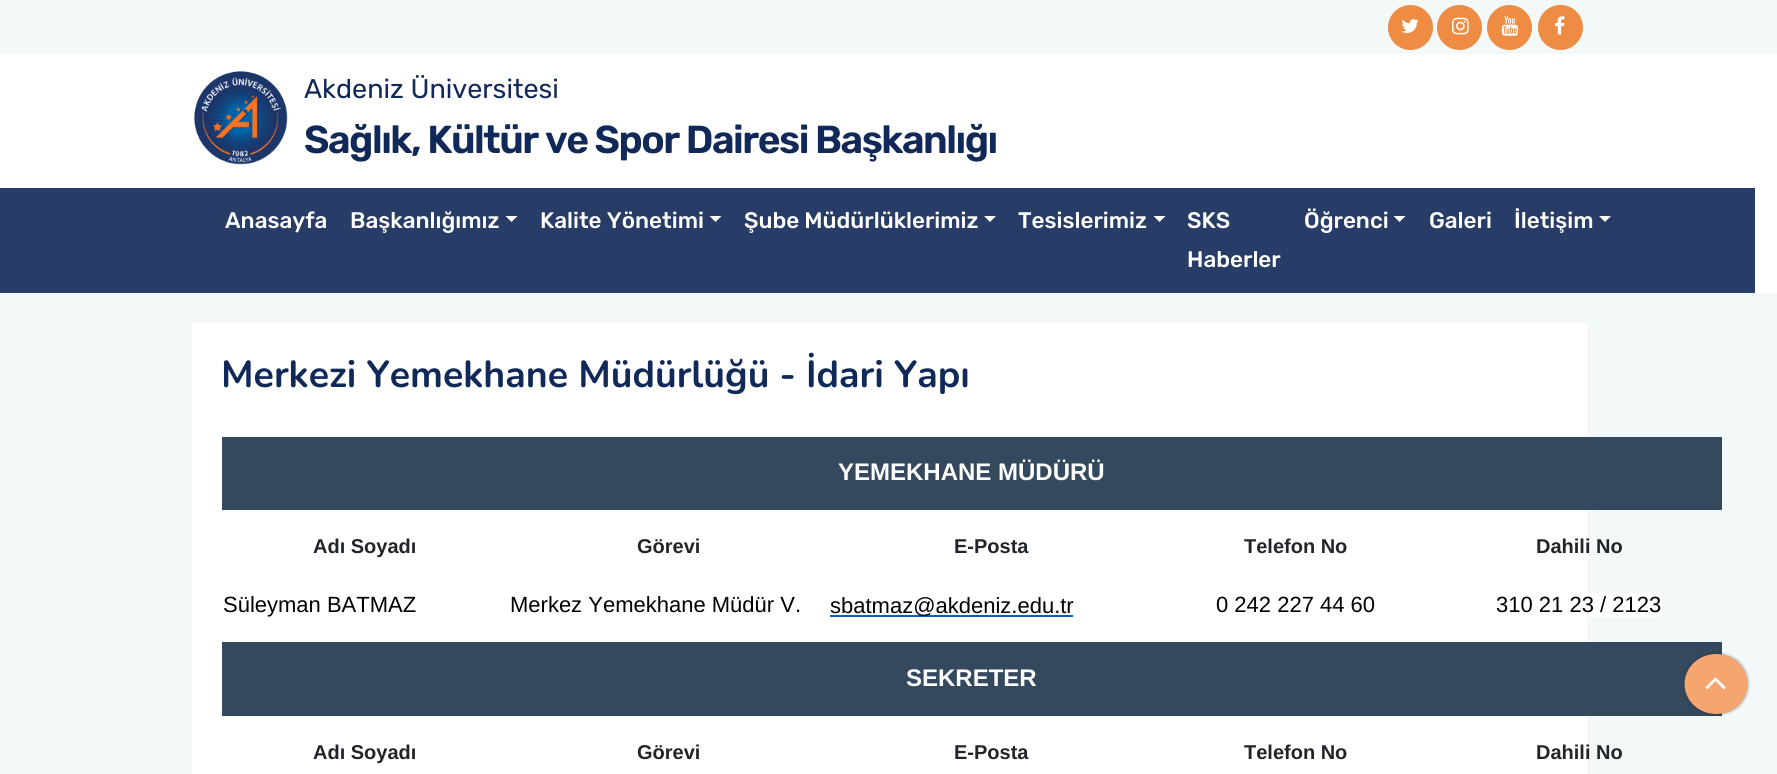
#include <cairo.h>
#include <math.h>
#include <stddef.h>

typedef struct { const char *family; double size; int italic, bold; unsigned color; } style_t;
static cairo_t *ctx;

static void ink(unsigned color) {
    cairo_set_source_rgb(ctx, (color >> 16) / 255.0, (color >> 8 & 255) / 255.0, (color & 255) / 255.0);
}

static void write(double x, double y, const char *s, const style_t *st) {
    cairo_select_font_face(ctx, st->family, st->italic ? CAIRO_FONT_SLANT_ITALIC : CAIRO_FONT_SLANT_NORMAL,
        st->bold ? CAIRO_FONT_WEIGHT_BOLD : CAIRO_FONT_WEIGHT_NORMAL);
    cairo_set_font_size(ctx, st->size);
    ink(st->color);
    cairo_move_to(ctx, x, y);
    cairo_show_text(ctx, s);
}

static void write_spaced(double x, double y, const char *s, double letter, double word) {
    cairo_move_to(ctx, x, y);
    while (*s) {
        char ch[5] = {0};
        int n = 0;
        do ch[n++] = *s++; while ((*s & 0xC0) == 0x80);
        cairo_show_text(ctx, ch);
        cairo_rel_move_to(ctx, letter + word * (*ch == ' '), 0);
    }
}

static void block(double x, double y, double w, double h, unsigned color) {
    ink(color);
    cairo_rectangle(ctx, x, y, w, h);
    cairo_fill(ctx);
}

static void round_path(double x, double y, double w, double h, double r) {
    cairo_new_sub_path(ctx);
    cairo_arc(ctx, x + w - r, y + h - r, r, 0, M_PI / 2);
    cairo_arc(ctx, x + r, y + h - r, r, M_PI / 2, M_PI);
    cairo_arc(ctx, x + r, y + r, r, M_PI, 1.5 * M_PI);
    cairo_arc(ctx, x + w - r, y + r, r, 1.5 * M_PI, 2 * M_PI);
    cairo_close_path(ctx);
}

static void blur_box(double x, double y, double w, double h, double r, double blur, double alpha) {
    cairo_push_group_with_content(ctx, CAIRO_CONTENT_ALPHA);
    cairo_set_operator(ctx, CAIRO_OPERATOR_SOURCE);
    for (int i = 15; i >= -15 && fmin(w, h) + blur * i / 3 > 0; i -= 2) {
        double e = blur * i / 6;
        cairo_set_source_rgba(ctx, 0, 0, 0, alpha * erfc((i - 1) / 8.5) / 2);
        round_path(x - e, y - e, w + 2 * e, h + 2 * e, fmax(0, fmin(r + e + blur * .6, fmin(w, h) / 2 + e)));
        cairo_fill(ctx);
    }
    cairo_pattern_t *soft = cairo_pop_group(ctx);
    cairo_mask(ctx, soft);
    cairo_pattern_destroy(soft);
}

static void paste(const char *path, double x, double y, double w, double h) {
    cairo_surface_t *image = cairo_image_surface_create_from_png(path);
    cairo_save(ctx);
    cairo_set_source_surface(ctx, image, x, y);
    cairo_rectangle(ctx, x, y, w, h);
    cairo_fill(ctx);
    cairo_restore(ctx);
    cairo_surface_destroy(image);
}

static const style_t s1 = {"Rubik", 27, 0, 0, 0x112958};
static const style_t s2 = {"Rubik Medium", 22.5, 0, 0, 0xffffff};
static const style_t s3 = {"Nunito", 37.5, 0, 1, 0x112958};
static const style_t s4 = {"Liberation Sans", 24, 0, 1, 0xffffff};
static const style_t s5 = {"Liberation Sans", 20, 0, 1, 0x212529};
static const style_t s6 = {"Liberation Sans", 22, 0, 0, 0x000000};

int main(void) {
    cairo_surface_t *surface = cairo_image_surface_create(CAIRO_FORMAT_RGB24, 1777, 774);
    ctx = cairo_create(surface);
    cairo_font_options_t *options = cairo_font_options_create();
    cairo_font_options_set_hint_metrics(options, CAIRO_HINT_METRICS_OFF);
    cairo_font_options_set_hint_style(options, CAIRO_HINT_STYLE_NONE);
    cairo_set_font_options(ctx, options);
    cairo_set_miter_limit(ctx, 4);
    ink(0xffffff);
    cairo_paint(ctx);
    block(0, 0, 1777, 54, 0xf3f8f9);
    ink(0xed8c42);
    cairo_arc(ctx, 1410.5, 27.5, 22.5, 0, 2 * M_PI);
    cairo_fill(ctx);
    paste("pic1.png", 1401, 19, 18, 14);
    cairo_arc(ctx, 1459.5, 27.5, 22.5, 0, 2 * M_PI);
    cairo_fill(ctx);
    paste("pic2.png", 1452, 17, 17, 18);
    cairo_arc(ctx, 1509.5, 27.5, 22.5, 0, 2 * M_PI);
    cairo_fill(ctx);
    paste("pic3.png", 1501, 16, 17, 20);
    cairo_arc(ctx, 1560.5, 27.5, 22.5, 0, 2 * M_PI);
    cairo_fill(ctx);
    paste("pic4.png", 1555, 16, 10, 19);
    paste("pic5.png", 194, 71, 94, 94);
    write(304, 98, "Akdeniz Üniversitesi", &s1);
    cairo_select_font_face(ctx, "Rubik SemiBold", CAIRO_FONT_SLANT_NORMAL, CAIRO_FONT_WEIGHT_NORMAL);
    cairo_set_font_size(ctx, 39);
    write_spaced(304, 153, "Sağlık, Kültür ve Spor Dairesi Başkanlığı", -1.5, 0);
    block(0, 188, 1755, 105, 0x273c66);
    write(225, 228, "Anasayfa", &s2);
    write(350, 228, "Başkanlığımız", &s2);
    cairo_new_path(ctx);
    cairo_move_to(ctx, 505.5, 216);
    cairo_line_to(ctx, 517.5, 216);
    cairo_line_to(ctx, 511.5, 222);
    cairo_close_path(ctx);
    cairo_fill(ctx);
    write(540, 228, "Kalite Yönetimi", &s2);
    cairo_new_path(ctx);
    cairo_move_to(ctx, 709.5, 216);
    cairo_line_to(ctx, 721.5, 216);
    cairo_line_to(ctx, 715.5, 222);
    cairo_close_path(ctx);
    cairo_fill(ctx);
    write(744, 228, "Şube Müdürlüklerimiz", &s2);
    cairo_new_path(ctx);
    cairo_move_to(ctx, 984, 216);
    cairo_line_to(ctx, 996, 216);
    cairo_line_to(ctx, 990, 222);
    cairo_close_path(ctx);
    cairo_fill(ctx);
    write(1018, 228, "Tesislerimiz", &s2);
    cairo_new_path(ctx);
    cairo_move_to(ctx, 1153.5, 216);
    cairo_line_to(ctx, 1165.5, 216);
    cairo_line_to(ctx, 1159.5, 222);
    cairo_close_path(ctx);
    cairo_fill(ctx);
    write(1187, 228, "SKS", &s2);
    write(1187, 267, "Haberler", &s2);
    write(1304, 228, "Öğrenci", &s2);
    cairo_new_path(ctx);
    cairo_move_to(ctx, 1393.5, 216);
    cairo_line_to(ctx, 1405.5, 216);
    cairo_line_to(ctx, 1399.5, 222);
    cairo_close_path(ctx);
    cairo_fill(ctx);
    write(1429, 228, "Galeri", &s2);
    write(1514, 228, "İletişim", &s2);
    cairo_new_path(ctx);
    cairo_move_to(ctx, 1599, 216);
    cairo_line_to(ctx, 1611, 216);
    cairo_line_to(ctx, 1605, 222);
    cairo_close_path(ctx);
    cairo_fill(ctx);
    block(0, 293, 1777, 481, 0xf3f8f9);
    block(192, 323, 1395, 451, 0xffffff);
    write(221, 387, "Merkezi Yemekhane Müdürlüğü - İdari Yapı", &s3);
    block(222, 437, 1500, 73, 0x34495e);
    write(838, 480, "YEMEKHANE MÜDÜRÜ", &s4);
    write(313, 553, "Adı Soyadı", &s5);
    write(637, 553, "Görevi", &s5);
    write(954, 553, "E-Posta", &s5);
    write(1244, 553, "Telefon No", &s5);
    write(1536, 553, "Dahili No", &s5);
    write(223, 612, "Süleyman BATMAZ", &s6);
    write(510, 612, "Merkez Yemekhane Müdür V.", &s6);
    block(830, 615, 243, 2, 0x0563c1);
    write(830, 613, "sbatmaz@akdeniz.edu.tr", &s6);
    write(1216, 612, "0 242 227 44 60", &s6);
    block(1587, 593, 75, 24, 0xffffff);
    write(1496, 612, "310 21 23 / 2123", &s6);
    block(222, 642, 1500, 74, 0x34495e);
    write(906, 686, "SEKRETER", &s4);
    write(313, 759, "Adı Soyadı", &s5);
    write(637, 759, "Görevi", &s5);
    write(954, 759, "E-Posta", &s5);
    write(1244, 759, "Telefon No", &s5);
    write(1536, 759, "Dahili No", &s5);
    ink(0x000000);
    blur_box(1685, 654, 63, 60, 30, 1.5, 0.4);
    ink(0xf4a66e);
    cairo_new_path(ctx);
    cairo_move_to(ctx, 1716, 654);
    cairo_curve_to(ctx, 1733.5, 654, 1747.5, 667.5, 1747.5, 684);
    cairo_curve_to(ctx, 1747.5, 700.5, 1733.5, 714, 1716, 714);
    cairo_curve_to(ctx, 1698.5, 714, 1684.5, 700.5, 1684.5, 684);
    cairo_curve_to(ctx, 1684.5, 667.5, 1698.5, 654, 1716, 654);
    cairo_close_path(ctx);
    cairo_fill(ctx);
    paste("pic6.png", 1705, 677, 21, 12);
    cairo_surface_write_to_png(surface, "screenshot.png");
    cairo_font_options_destroy(options);
    cairo_destroy(ctx);
    cairo_surface_destroy(surface);
    return 0;
}
